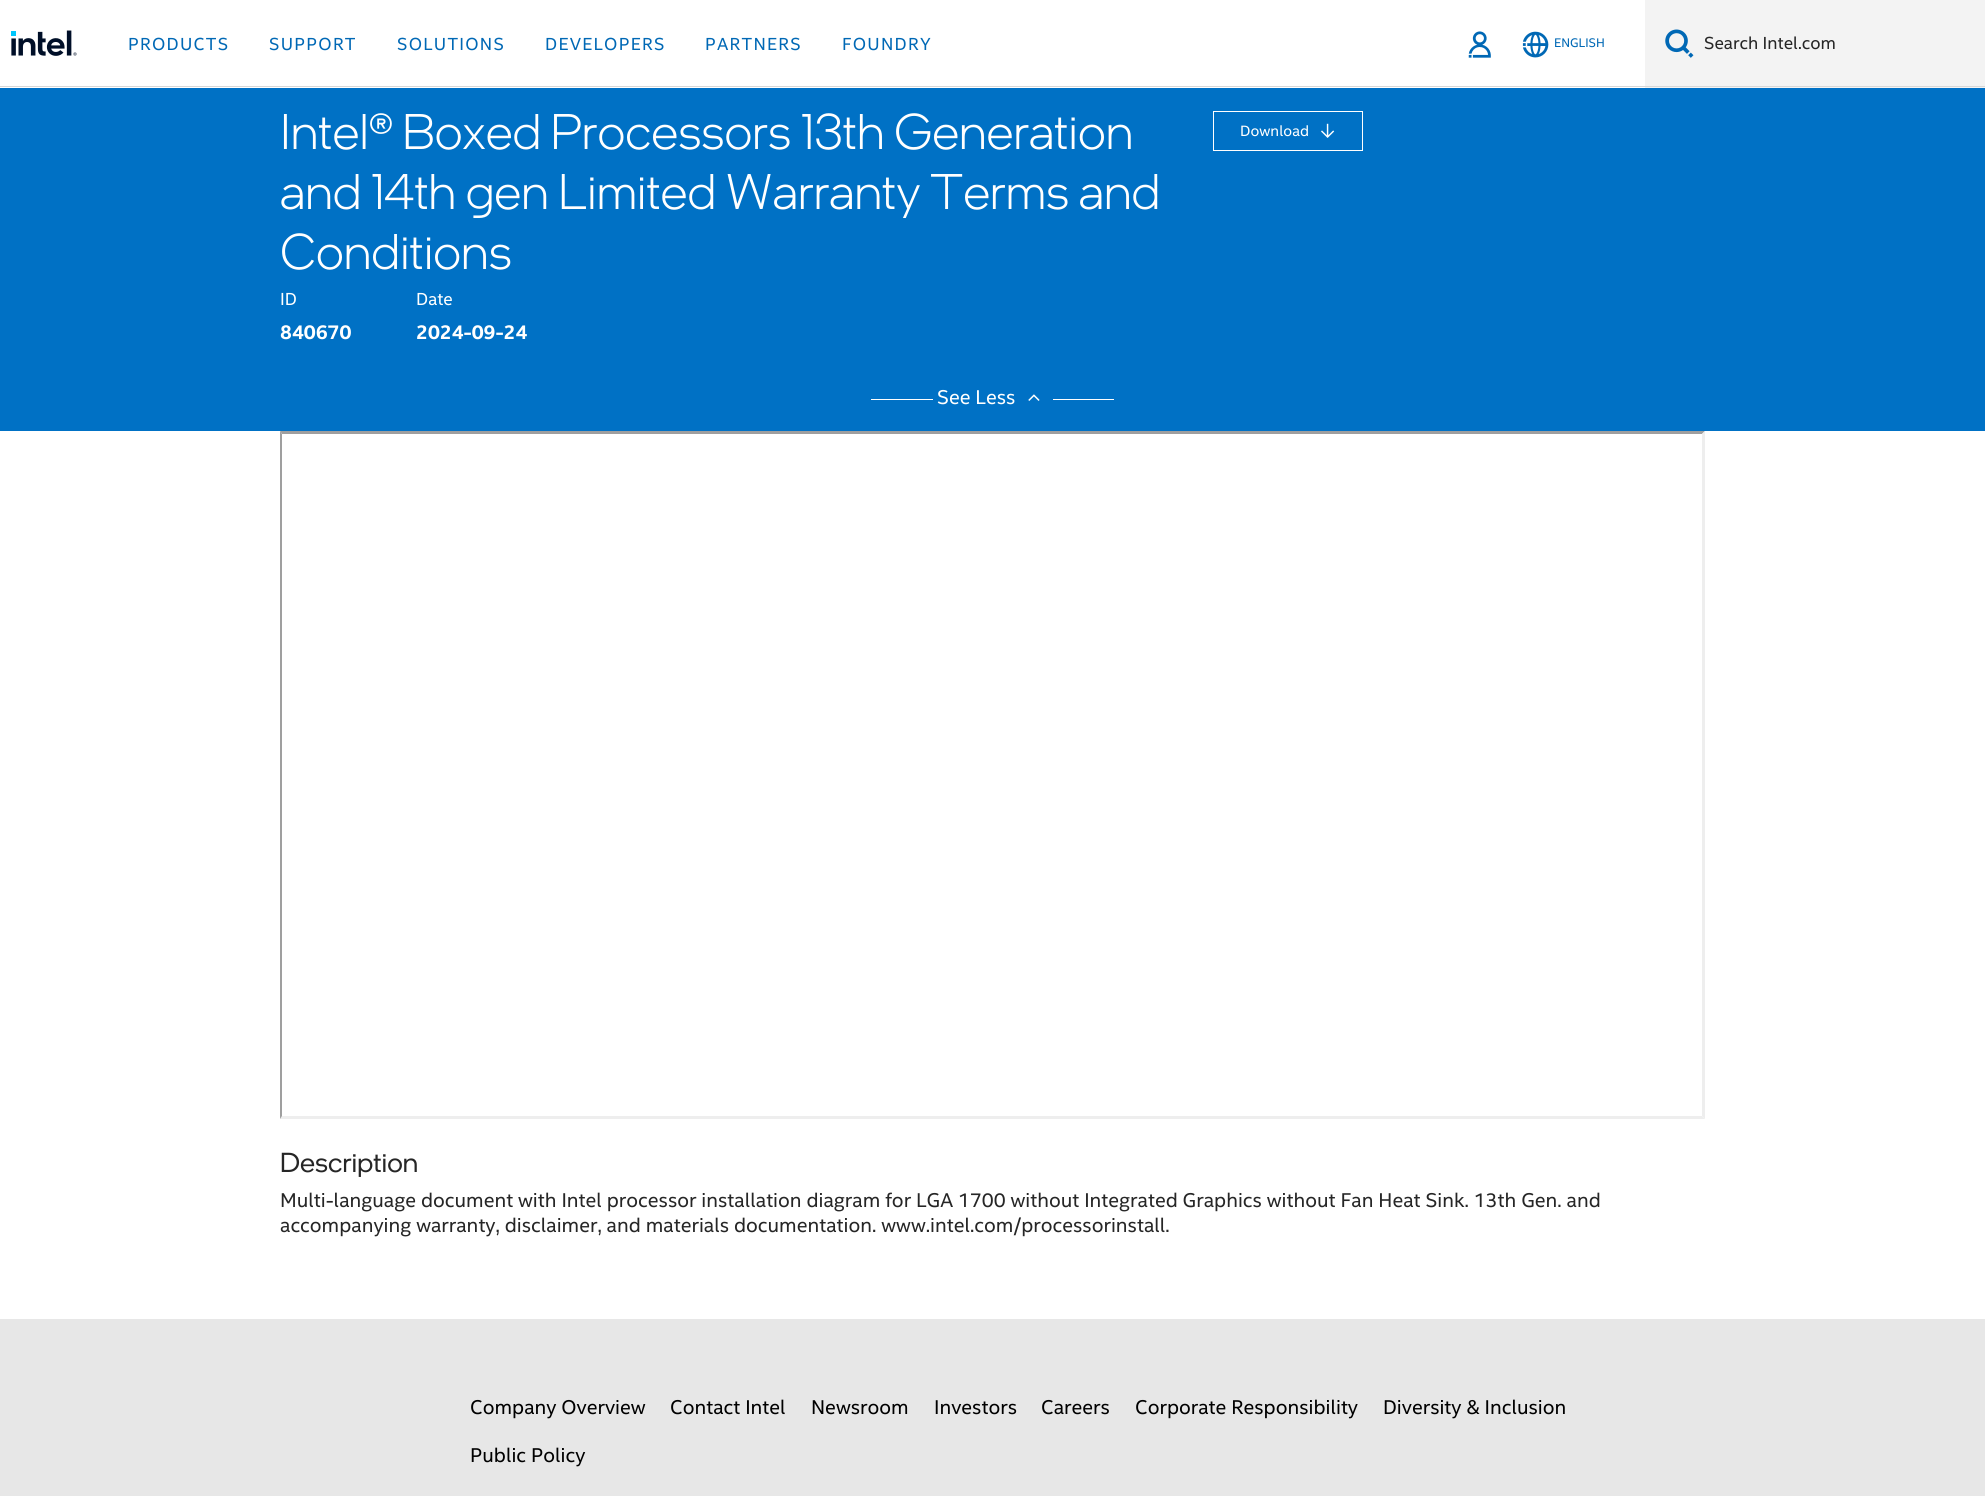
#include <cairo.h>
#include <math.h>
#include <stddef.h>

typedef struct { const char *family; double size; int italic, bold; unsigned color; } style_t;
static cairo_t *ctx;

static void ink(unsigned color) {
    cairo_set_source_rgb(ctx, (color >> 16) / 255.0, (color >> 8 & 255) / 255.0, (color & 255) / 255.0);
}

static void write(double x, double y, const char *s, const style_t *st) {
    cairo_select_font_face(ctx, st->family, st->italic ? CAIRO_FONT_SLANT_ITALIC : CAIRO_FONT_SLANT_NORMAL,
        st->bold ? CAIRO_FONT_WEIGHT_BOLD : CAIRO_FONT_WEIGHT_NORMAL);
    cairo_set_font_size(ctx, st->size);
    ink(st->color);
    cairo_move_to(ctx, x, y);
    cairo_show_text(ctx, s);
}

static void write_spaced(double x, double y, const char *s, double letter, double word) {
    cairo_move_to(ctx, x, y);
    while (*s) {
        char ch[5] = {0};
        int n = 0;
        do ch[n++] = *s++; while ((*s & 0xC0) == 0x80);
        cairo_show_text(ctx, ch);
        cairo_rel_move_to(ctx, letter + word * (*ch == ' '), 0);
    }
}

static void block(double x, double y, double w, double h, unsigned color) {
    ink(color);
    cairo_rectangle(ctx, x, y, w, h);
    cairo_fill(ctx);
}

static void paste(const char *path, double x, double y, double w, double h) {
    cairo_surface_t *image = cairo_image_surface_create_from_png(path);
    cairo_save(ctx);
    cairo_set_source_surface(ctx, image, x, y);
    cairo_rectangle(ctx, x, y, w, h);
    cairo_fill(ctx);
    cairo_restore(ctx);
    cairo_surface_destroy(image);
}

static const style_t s1 = {"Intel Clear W", 12.5, 0, 0, 0x0068b5};
static const style_t s2 = {"Intel Clear W", 17.5, 0, 0, 0x262626};
static const style_t s3 = {"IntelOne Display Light", 50, 0, 0, 0xffffff};
static const style_t s4 = {"Intel Clear W", 15, 0, 0, 0xffffff};
static const style_t s5 = {"Intel Clear W", 17.5, 0, 0, 0xffffff};
static const style_t s6 = {"Intel Clear W", 20, 0, 1, 0xffffff};
static const style_t s7 = {"Intel Clear W", 20, 0, 0, 0xffffff};
static const style_t s8 = {"IntelOne Display", 27.5, 0, 0, 0x262626};
static const style_t s9 = {"Intel Clear W", 20, 0, 0, 0x262626};
static const style_t s10 = {"Intel Clear W", 20, 0, 0, 0x000000};

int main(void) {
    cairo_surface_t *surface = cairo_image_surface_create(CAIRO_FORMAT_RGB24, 1985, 1496);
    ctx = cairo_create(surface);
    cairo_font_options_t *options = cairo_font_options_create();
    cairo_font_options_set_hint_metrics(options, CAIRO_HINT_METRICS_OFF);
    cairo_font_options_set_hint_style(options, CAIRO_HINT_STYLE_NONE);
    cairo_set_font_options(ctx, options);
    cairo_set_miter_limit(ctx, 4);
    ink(0xffffff);
    cairo_paint(ctx);
    block(0, 86, 1645, 1, 0xd7d7d7);
    paste("pic1.png", 11, 30, 66, 26);
    cairo_select_font_face(ctx, "Intel Clear W", CAIRO_FONT_SLANT_NORMAL, CAIRO_FONT_WEIGHT_NORMAL);
    cairo_set_font_size(ctx, 17.5);
    ink(0x0068b5);
    write_spaced(128, 50, "PRODUCTS", 1.25, 0);
    write_spaced(269, 50, "SUPPORT", 1.25, 0);
    write_spaced(397, 50, "SOLUTIONS", 1.25, 0);
    write_spaced(545, 50, "DEVELOPERS", 1.25, 0);
    write_spaced(705, 50, "PARTNERS", 1.25, 0);
    write_spaced(842, 50, "FOUNDRY", 1.25, 0);
    paste("pic2.png", 1468, 31, 23, 27);
    paste("pic3.png", 1522, 31, 27, 27);
    write(1554, 47, "ENGLISH", &s1);
    block(1645, 0, 340, 88, 0xf3f3f3);
    block(1645, 86, 340, 1, 0xd7d7d7);
    paste("pic4.png", 1665, 29, 29, 29);
    write(1704, 49, "Search Intel.com", &s2);
    block(0, 88, 1985, 343, 0x0071c5);
    write(280, 149, "Intel® Boxed Processors 13th Generation", &s3);
    write(280, 209, "and 14th gen Limited Warranty Terms and", &s3);
    write(280, 269, "Conditions", &s3);
    cairo_rectangle(ctx, 1213.5, 111.5, 149, 39);
    cairo_set_line_width(ctx, 1);
    cairo_stroke(ctx);
    write(1240, 136, "Download", &s4);
    paste("pic5.png", 1321, 123, 14, 15);
    write(280, 305, "ID", &s5);
    write(280, 339, "840670", &s6);
    write(416, 305, "Date", &s5);
    write(416, 339, "2024-09-24", &s6);
    block(871, 399, 62, 1, 0xffffff);
    write(937, 404, "See Less", &s7);
    paste("pic6.png", 1028, 394, 12, 7);
    block(1053, 399, 61, 1, 0xffffff);
    ink(0x9f9f9f);
    cairo_new_path(ctx);
    cairo_move_to(ctx, 280, 431);
    cairo_line_to(ctx, 1705, 431);
    cairo_line_to(ctx, 1702, 434);
    cairo_line_to(ctx, 282, 434);
    cairo_close_path(ctx);
    cairo_fill(ctx);
    ink(0xeeeeee);
    cairo_new_path(ctx);
    cairo_move_to(ctx, 1705, 431);
    cairo_line_to(ctx, 1705, 1119);
    cairo_line_to(ctx, 1702, 1116);
    cairo_line_to(ctx, 1702, 434);
    cairo_close_path(ctx);
    cairo_fill(ctx);
    cairo_new_path(ctx);
    cairo_move_to(ctx, 1705, 1119);
    cairo_line_to(ctx, 280, 1119);
    cairo_line_to(ctx, 282, 1116);
    cairo_line_to(ctx, 1702, 1116);
    cairo_close_path(ctx);
    cairo_fill(ctx);
    ink(0x9f9f9f);
    cairo_new_path(ctx);
    cairo_move_to(ctx, 280, 1119);
    cairo_line_to(ctx, 280, 431);
    cairo_line_to(ctx, 282, 434);
    cairo_line_to(ctx, 282, 1116);
    cairo_close_path(ctx);
    cairo_fill(ctx);
    write(280, 1172, "Description", &s8);
    write(280, 1207, "Multi-language document with Intel processor installation diagram for LGA 1700 without Integrated Graphics without Fan Heat Sink. 13th Gen. and", &s9);
    write(280, 1232, "accompanying warranty, disclaimer, and materials documentation. www.intel.com/processorinstall.", &s9);
    block(0, 1319, 1985, 177, 0xe7e7e7);
    write(470, 1414, "Company Overview", &s10);
    write(670, 1414, "Contact Intel", &s10);
    write(811, 1414, "Newsroom", &s10);
    write(934, 1414, "Investors", &s10);
    write(1041, 1414, "Careers", &s10);
    write(1135, 1414, "Corporate Responsibility", &s10);
    write(1383, 1414, "Diversity & Inclusion", &s10);
    write(470, 1462, "Public Policy", &s10);
    cairo_surface_write_to_png(surface, "screenshot.png");
    cairo_font_options_destroy(options);
    cairo_destroy(ctx);
    cairo_surface_destroy(surface);
    return 0;
}
